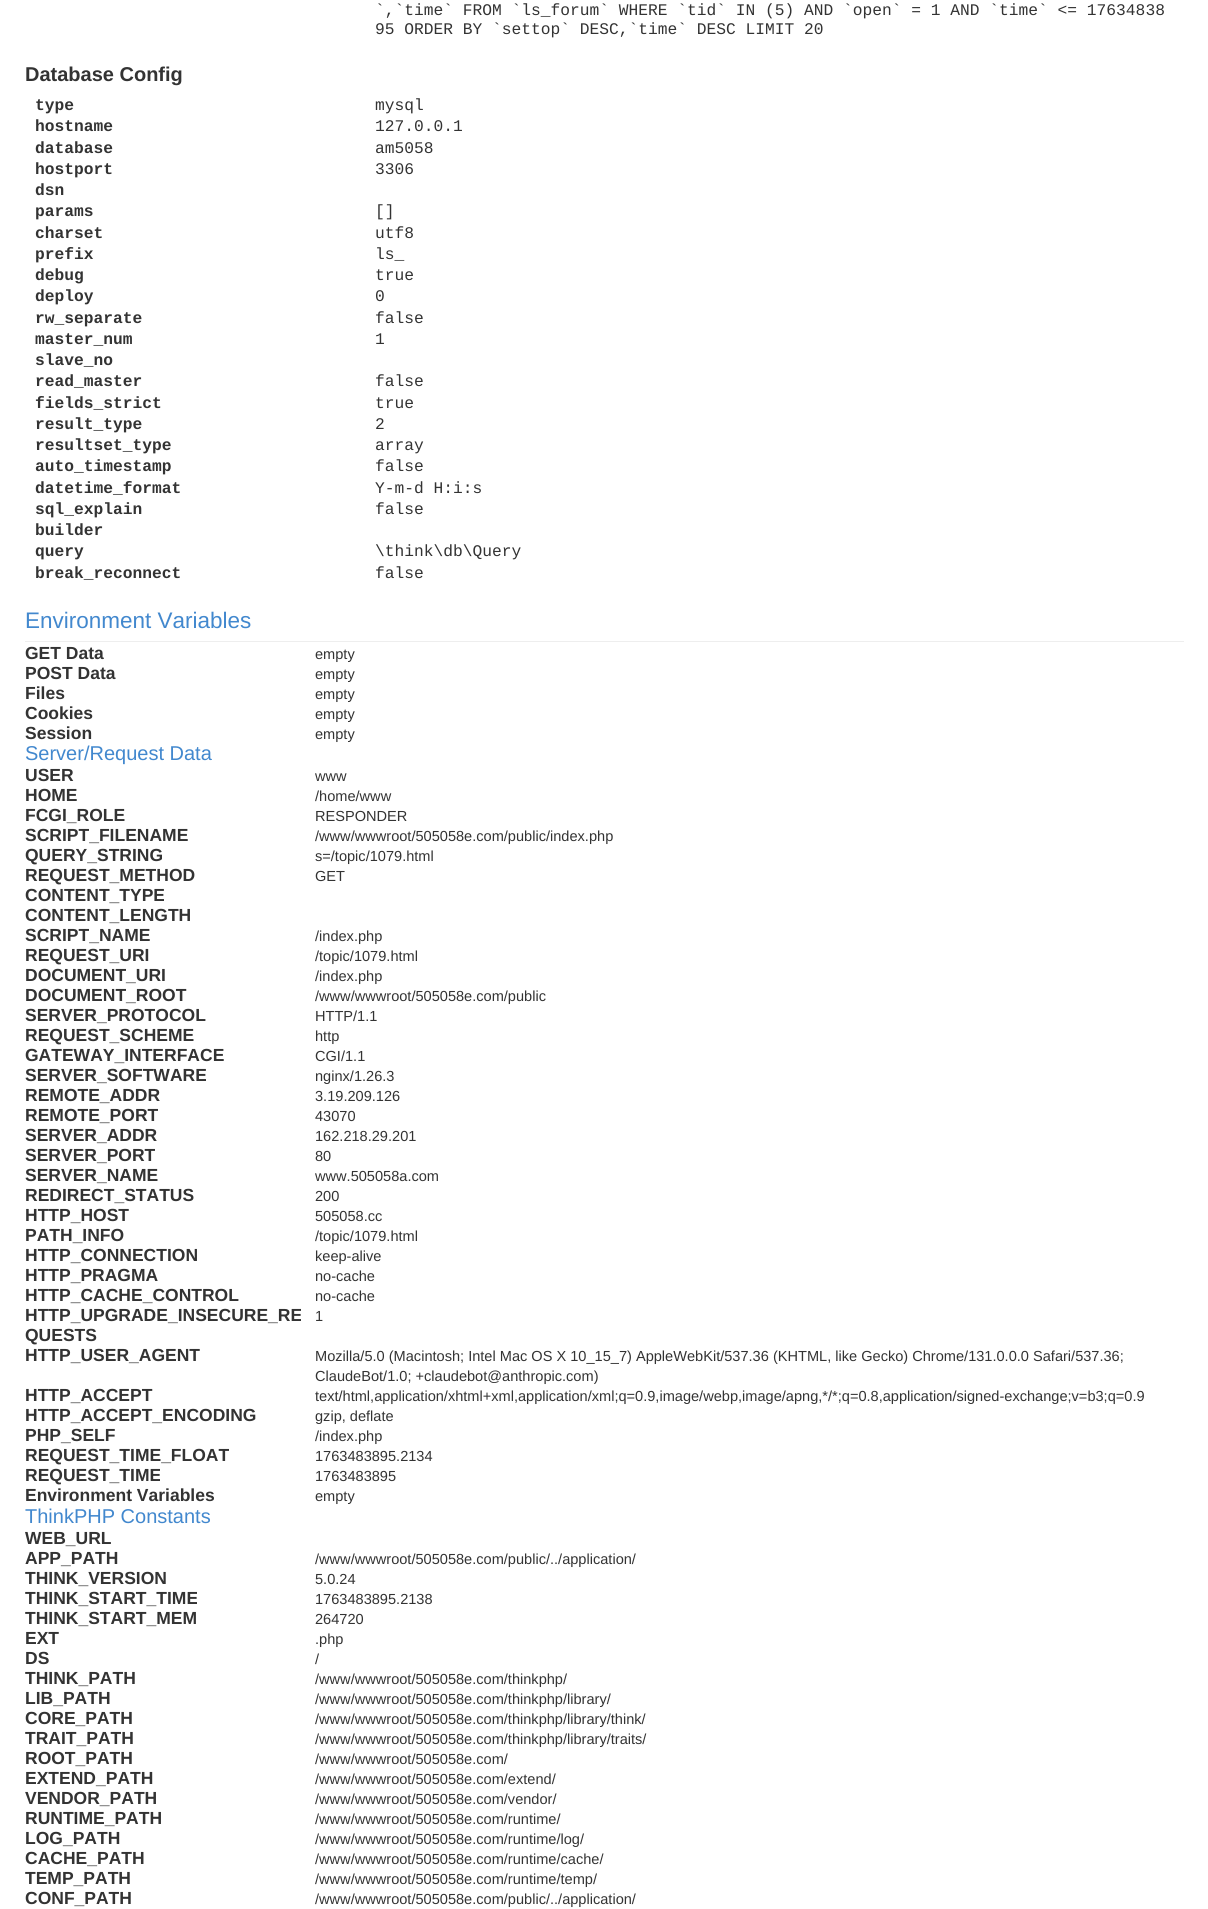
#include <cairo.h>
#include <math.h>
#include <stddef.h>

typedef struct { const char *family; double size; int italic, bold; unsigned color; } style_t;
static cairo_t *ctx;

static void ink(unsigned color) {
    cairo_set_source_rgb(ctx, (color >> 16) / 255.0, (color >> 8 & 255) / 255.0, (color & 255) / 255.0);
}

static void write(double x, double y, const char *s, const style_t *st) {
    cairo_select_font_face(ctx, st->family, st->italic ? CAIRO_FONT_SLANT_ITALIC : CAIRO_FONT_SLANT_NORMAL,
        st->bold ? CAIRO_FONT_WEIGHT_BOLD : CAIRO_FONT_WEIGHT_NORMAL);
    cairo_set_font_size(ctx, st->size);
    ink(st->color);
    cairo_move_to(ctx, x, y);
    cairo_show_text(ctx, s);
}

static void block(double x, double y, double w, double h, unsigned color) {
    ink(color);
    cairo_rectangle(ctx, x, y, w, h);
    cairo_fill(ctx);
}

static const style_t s1 = {"Liberation Mono", 16.25, 0, 0, 0x333333};
static const style_t s2 = {"Liberation Sans", 20, 0, 1, 0x333333};
static const style_t s3 = {"Liberation Mono", 16.25, 0, 1, 0x333333};
static const style_t s4 = {"Liberation Sans", 22.5, 0, 0, 0x4288ce};
static const style_t s5 = {"Liberation Sans", 17.5, 0, 1, 0x333333};
static const style_t s6 = {"Liberation Sans", 14.58, 0, 0, 0x333333};
static const style_t s7 = {"Liberation Sans", 20, 0, 0, 0x4288ce};

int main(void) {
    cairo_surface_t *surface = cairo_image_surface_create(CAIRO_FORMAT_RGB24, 1208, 1909);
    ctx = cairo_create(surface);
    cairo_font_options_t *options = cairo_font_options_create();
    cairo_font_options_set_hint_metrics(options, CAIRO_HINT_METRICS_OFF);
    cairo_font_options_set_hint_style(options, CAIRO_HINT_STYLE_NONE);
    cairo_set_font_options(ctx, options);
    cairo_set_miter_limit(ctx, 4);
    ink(0xffffff);
    cairo_paint(ctx);
    write(375, 15, "`,`time` FROM `ls_forum` WHERE `tid` IN (5) AND `open` = 1 AND `time` <= 17634838", &s1);
    write(375, 34, "95 ORDER BY `settop` DESC,`time` DESC LIMIT 20", &s1);
    write(25, 81, "Database Config", &s2);
    write(35, 110, "type", &s3);
    write(375, 110, "mysql", &s1);
    write(35, 131, "hostname", &s3);
    write(375, 131, "127.0.0.1", &s1);
    write(35, 153, "database", &s3);
    write(375, 153, "am5058", &s1);
    write(35, 174, "hostport", &s3);
    write(375, 174, "3306", &s1);
    write(35, 195, "dsn", &s3);
    write(35, 216, "params", &s3);
    write(375, 216, "[]", &s1);
    write(35, 238, "charset", &s3);
    write(375, 238, "utf8", &s1);
    write(35, 259, "prefix", &s3);
    write(375, 259, "ls_", &s1);
    write(35, 280, "debug", &s3);
    write(375, 280, "true", &s1);
    write(35, 301, "deploy", &s3);
    write(375, 301, "0", &s1);
    write(35, 323, "rw_separate", &s3);
    write(375, 323, "false", &s1);
    write(35, 344, "master_num", &s3);
    write(375, 344, "1", &s1);
    write(35, 365, "slave_no", &s3);
    write(35, 386, "read_master", &s3);
    write(375, 386, "false", &s1);
    write(35, 408, "fields_strict", &s3);
    write(375, 408, "true", &s1);
    write(35, 429, "result_type", &s3);
    write(375, 429, "2", &s1);
    write(35, 450, "resultset_type", &s3);
    write(375, 450, "array", &s1);
    write(35, 471, "auto_timestamp", &s3);
    write(375, 471, "false", &s1);
    write(35, 493, "datetime_format", &s3);
    write(375, 493, "Y-m-d H:i:s", &s1);
    write(35, 514, "sql_explain", &s3);
    write(375, 514, "false", &s1);
    write(35, 535, "builder", &s3);
    write(35, 556, "query", &s3);
    write(375, 556, "\\think\\db\\Query", &s1);
    write(35, 578, "break_reconnect", &s3);
    write(375, 578, "false", &s1);
    block(25, 641, 1159, 1, 0xeeeeee);
    write(25, 628, "Environment Variables", &s4);
    write(25, 659, "GET Data", &s5);
    write(315, 659, "empty", &s6);
    write(25, 679, "POST Data", &s5);
    write(315, 679, "empty", &s6);
    write(25, 699, "Files", &s5);
    write(315, 699, "empty", &s6);
    write(25, 719, "Cookies", &s5);
    write(315, 719, "empty", &s6);
    write(25, 739, "Session", &s5);
    write(315, 739, "empty", &s6);
    write(25, 760, "Server/Request Data", &s7);
    write(25, 781, "USER", &s5);
    write(315, 781, "www", &s6);
    write(25, 801, "HOME", &s5);
    write(315, 801, "/home/www", &s6);
    write(25, 821, "FCGI_ROLE", &s5);
    write(315, 821, "RESPONDER", &s6);
    write(25, 841, "SCRIPT_FILENAME", &s5);
    write(315, 841, "/www/wwwroot/505058e.com/public/index.php", &s6);
    write(25, 861, "QUERY_STRING", &s5);
    write(315, 861, "s=/topic/1079.html", &s6);
    write(25, 881, "REQUEST_METHOD", &s5);
    write(315, 881, "GET", &s6);
    write(25, 901, "CONTENT_TYPE", &s5);
    write(25, 921, "CONTENT_LENGTH", &s5);
    write(25, 941, "SCRIPT_NAME", &s5);
    write(315, 941, "/index.php", &s6);
    write(25, 961, "REQUEST_URI", &s5);
    write(315, 961, "/topic/1079.html", &s6);
    write(25, 981, "DOCUMENT_URI", &s5);
    write(315, 981, "/index.php", &s6);
    write(25, 1001, "DOCUMENT_ROOT", &s5);
    write(315, 1001, "/www/wwwroot/505058e.com/public", &s6);
    write(25, 1021, "SERVER_PROTOCOL", &s5);
    write(315, 1021, "HTTP/1.1", &s6);
    write(25, 1041, "REQUEST_SCHEME", &s5);
    write(315, 1041, "http", &s6);
    write(25, 1061, "GATEWAY_INTERFACE", &s5);
    write(315, 1061, "CGI/1.1", &s6);
    write(25, 1081, "SERVER_SOFTWARE", &s5);
    write(315, 1081, "nginx/1.26.3", &s6);
    write(25, 1101, "REMOTE_ADDR", &s5);
    write(315, 1101, "3.19.209.126", &s6);
    write(25, 1121, "REMOTE_PORT", &s5);
    write(315, 1121, "43070", &s6);
    write(25, 1141, "SERVER_ADDR", &s5);
    write(315, 1141, "162.218.29.201", &s6);
    write(25, 1161, "SERVER_PORT", &s5);
    write(315, 1161, "80", &s6);
    write(25, 1181, "SERVER_NAME", &s5);
    write(315, 1181, "www.505058a.com", &s6);
    write(25, 1201, "REDIRECT_STATUS", &s5);
    write(315, 1201, "200", &s6);
    write(25, 1221, "HTTP_HOST", &s5);
    write(315, 1221, "505058.cc", &s6);
    write(25, 1241, "PATH_INFO", &s5);
    write(315, 1241, "/topic/1079.html", &s6);
    write(25, 1261, "HTTP_CONNECTION", &s5);
    write(315, 1261, "keep-alive", &s6);
    write(25, 1281, "HTTP_PRAGMA", &s5);
    write(315, 1281, "no-cache", &s6);
    write(25, 1301, "HTTP_CACHE_CONTROL", &s5);
    write(315, 1301, "no-cache", &s6);
    write(25, 1321, "HTTP_UPGRADE_INSECURE_RE", &s5);
    write(25, 1341, "QUESTS", &s5);
    write(315, 1321, "1", &s6);
    write(25, 1361, "HTTP_USER_AGENT", &s5);
    write(315, 1361, "Mozilla/5.0 (Macintosh; Intel Mac OS X 10_15_7) AppleWebKit/537.36 (KHTML, like Gecko) Chrome/131.0.0.0 Safari/537.36;", &s6);
    write(315, 1381, "ClaudeBot/1.0; +claudebot@anthropic.com)", &s6);
    write(25, 1401, "HTTP_ACCEPT", &s5);
    write(315, 1401, "text/html,application/xhtml+xml,application/xml;q=0.9,image/webp,image/apng,*/*;q=0.8,application/signed-exchange;v=b3;q=0.9", &s6);
    write(25, 1421, "HTTP_ACCEPT_ENCODING", &s5);
    write(315, 1421, "gzip, deflate", &s6);
    write(25, 1441, "PHP_SELF", &s5);
    write(315, 1441, "/index.php", &s6);
    write(25, 1461, "REQUEST_TIME_FLOAT", &s5);
    write(315, 1461, "1763483895.2134", &s6);
    write(25, 1481, "REQUEST_TIME", &s5);
    write(315, 1481, "1763483895", &s6);
    write(25, 1501, "Environment Variables", &s5);
    write(315, 1501, "empty", &s6);
    write(25, 1523, "ThinkPHP Constants", &s7);
    write(25, 1544, "WEB_URL", &s5);
    write(25, 1564, "APP_PATH", &s5);
    write(315, 1564, "/www/wwwroot/505058e.com/public/../application/", &s6);
    write(25, 1584, "THINK_VERSION", &s5);
    write(315, 1584, "5.0.24", &s6);
    write(25, 1604, "THINK_START_TIME", &s5);
    write(315, 1604, "1763483895.2138", &s6);
    write(25, 1624, "THINK_START_MEM", &s5);
    write(315, 1624, "264720", &s6);
    write(25, 1644, "EXT", &s5);
    write(315, 1644, ".php", &s6);
    write(25, 1664, "DS", &s5);
    write(315, 1664, "/", &s6);
    write(25, 1684, "THINK_PATH", &s5);
    write(315, 1684, "/www/wwwroot/505058e.com/thinkphp/", &s6);
    write(25, 1704, "LIB_PATH", &s5);
    write(315, 1704, "/www/wwwroot/505058e.com/thinkphp/library/", &s6);
    write(25, 1724, "CORE_PATH", &s5);
    write(315, 1724, "/www/wwwroot/505058e.com/thinkphp/library/think/", &s6);
    write(25, 1744, "TRAIT_PATH", &s5);
    write(315, 1744, "/www/wwwroot/505058e.com/thinkphp/library/traits/", &s6);
    write(25, 1764, "ROOT_PATH", &s5);
    write(315, 1764, "/www/wwwroot/505058e.com/", &s6);
    write(25, 1784, "EXTEND_PATH", &s5);
    write(315, 1784, "/www/wwwroot/505058e.com/extend/", &s6);
    write(25, 1804, "VENDOR_PATH", &s5);
    write(315, 1804, "/www/wwwroot/505058e.com/vendor/", &s6);
    write(25, 1824, "RUNTIME_PATH", &s5);
    write(315, 1824, "/www/wwwroot/505058e.com/runtime/", &s6);
    write(25, 1844, "LOG_PATH", &s5);
    write(315, 1844, "/www/wwwroot/505058e.com/runtime/log/", &s6);
    write(25, 1864, "CACHE_PATH", &s5);
    write(315, 1864, "/www/wwwroot/505058e.com/runtime/cache/", &s6);
    write(25, 1884, "TEMP_PATH", &s5);
    write(315, 1884, "/www/wwwroot/505058e.com/runtime/temp/", &s6);
    write(25, 1904, "CONF_PATH", &s5);
    write(315, 1904, "/www/wwwroot/505058e.com/public/../application/", &s6);
    cairo_surface_write_to_png(surface, "screenshot.png");
    cairo_font_options_destroy(options);
    cairo_destroy(ctx);
    cairo_surface_destroy(surface);
    return 0;
}
